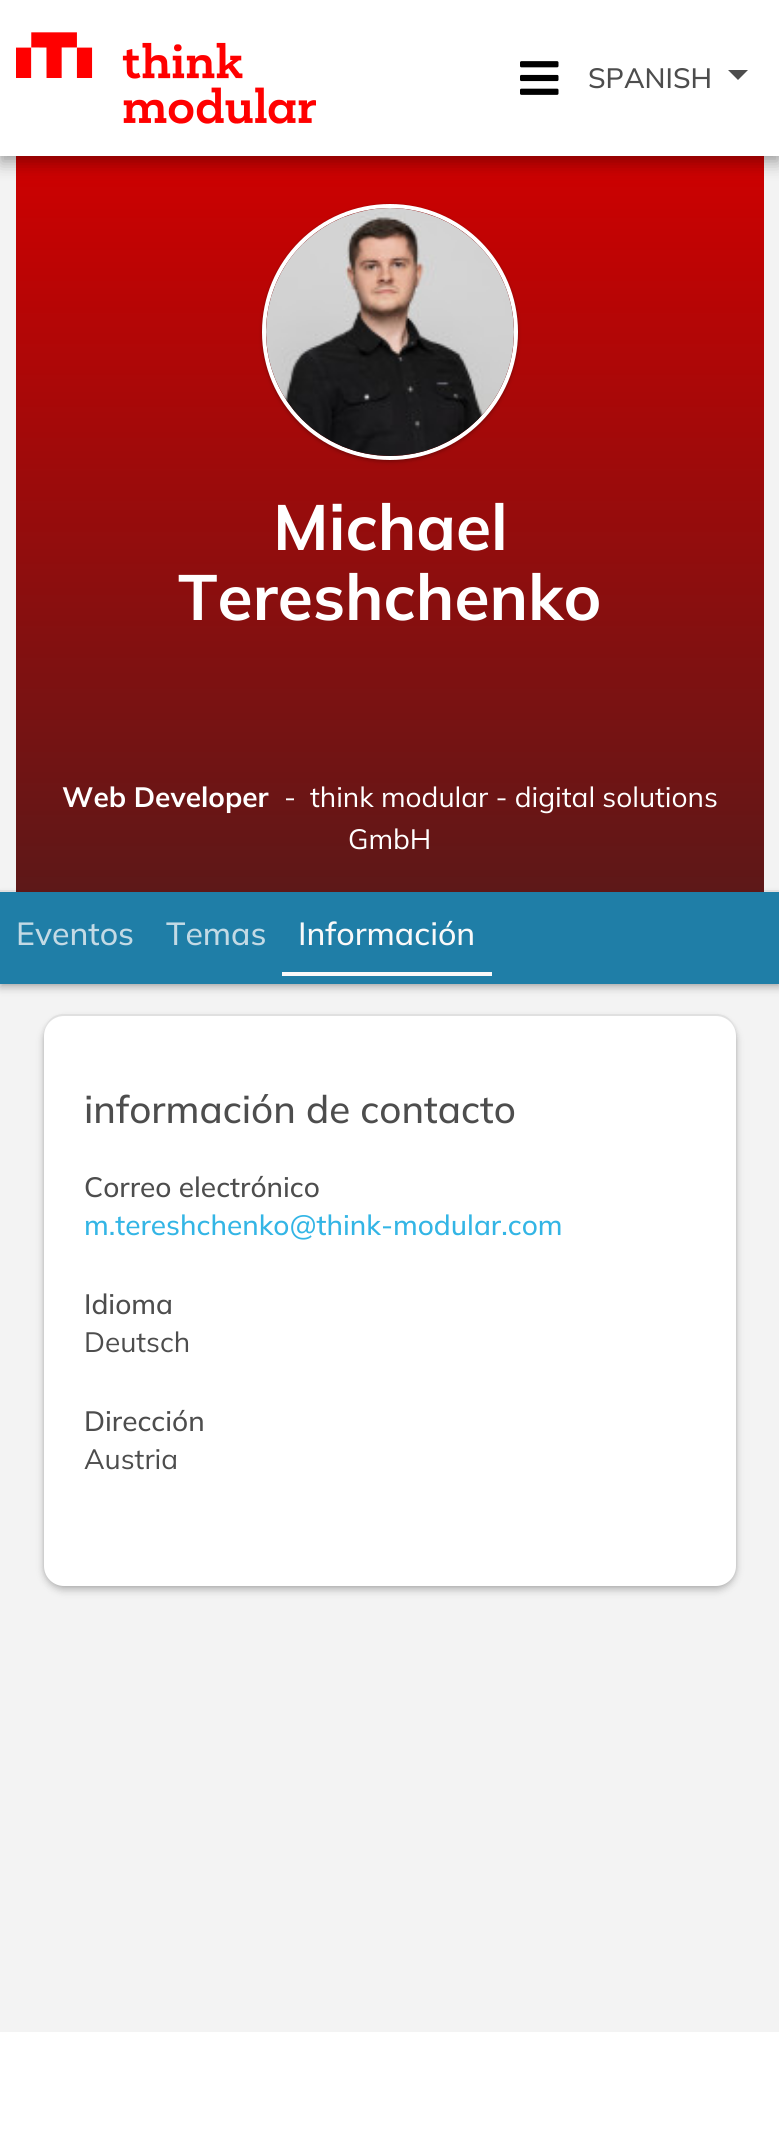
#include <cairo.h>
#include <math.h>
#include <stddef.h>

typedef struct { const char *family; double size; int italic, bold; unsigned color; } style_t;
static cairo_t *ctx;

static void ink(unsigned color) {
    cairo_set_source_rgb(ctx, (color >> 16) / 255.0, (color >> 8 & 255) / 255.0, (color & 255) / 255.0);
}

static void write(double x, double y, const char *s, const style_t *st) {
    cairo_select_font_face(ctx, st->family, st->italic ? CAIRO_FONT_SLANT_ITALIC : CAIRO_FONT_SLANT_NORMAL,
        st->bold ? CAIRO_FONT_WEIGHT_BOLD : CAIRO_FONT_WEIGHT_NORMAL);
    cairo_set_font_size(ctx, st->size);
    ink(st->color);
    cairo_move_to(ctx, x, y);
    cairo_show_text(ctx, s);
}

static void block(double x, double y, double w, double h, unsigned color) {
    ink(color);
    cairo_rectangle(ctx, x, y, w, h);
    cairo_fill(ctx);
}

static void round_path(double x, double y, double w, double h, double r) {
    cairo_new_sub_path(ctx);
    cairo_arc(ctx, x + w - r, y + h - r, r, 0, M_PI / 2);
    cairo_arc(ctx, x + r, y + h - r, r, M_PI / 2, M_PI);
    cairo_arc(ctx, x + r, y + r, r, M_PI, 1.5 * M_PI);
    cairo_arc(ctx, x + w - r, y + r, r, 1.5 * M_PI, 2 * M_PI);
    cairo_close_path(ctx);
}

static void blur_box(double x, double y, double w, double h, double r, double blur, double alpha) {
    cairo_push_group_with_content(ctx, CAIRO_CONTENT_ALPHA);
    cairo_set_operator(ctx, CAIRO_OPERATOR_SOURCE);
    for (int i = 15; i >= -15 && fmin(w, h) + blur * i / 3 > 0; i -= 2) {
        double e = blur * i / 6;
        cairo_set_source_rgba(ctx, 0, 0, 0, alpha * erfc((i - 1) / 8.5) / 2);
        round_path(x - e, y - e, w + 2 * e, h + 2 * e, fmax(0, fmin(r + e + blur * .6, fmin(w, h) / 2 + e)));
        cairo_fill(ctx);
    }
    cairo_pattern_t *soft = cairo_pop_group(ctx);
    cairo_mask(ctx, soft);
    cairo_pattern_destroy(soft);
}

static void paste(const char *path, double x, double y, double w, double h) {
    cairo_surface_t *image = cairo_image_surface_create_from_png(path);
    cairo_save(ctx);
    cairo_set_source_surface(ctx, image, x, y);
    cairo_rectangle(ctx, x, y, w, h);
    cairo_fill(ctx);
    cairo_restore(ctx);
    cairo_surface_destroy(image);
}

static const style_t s1 = {"Mulish Medium", 28, 0, 0, 0x4d4d4d};
static const style_t s2 = {"Mulish", 64, 0, 1, 0xffffff};
static const style_t s3 = {"Mulish", 28, 0, 1, 0xffffff};
static const style_t s4 = {"Mulish", 28, 0, 0, 0xffffff};
static const style_t s5 = {"Mulish Medium", 32, 0, 0, 0xc3dae5};
static const style_t s6 = {"Mulish Medium", 32, 0, 0, 0xf9f9f9};
static const style_t s7 = {"Mulish Medium", 38.4, 0, 0, 0x4d4d4d};
static const style_t s8 = {"Mulish Medium", 28, 0, 0, 0x33b5e5};
static const style_t s9 = {"Mulish", 28, 0, 0, 0x4d4d4d};

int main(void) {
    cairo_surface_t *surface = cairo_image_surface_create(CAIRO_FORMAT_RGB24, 779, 2131);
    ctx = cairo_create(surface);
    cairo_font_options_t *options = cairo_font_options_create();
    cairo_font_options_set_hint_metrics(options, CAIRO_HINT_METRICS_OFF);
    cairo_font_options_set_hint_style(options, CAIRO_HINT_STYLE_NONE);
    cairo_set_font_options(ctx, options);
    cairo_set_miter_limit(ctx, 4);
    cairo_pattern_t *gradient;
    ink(0xf3f3f3);
    cairo_paint(ctx);
    ink(0x000000);
    blur_box(0, 896, 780, 92, 0, 4, 0.24);
    blur_box(0, 892, 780, 92, 0, 2, 0.12);
    block(0, 890, 779, 2, 0xe0e0e0);
    gradient = cairo_pattern_create_linear(390, 140, 390, 892);
    cairo_pattern_add_color_stop_rgba(gradient, 0, 0.816, 0, 0, 1);
    cairo_pattern_add_color_stop_rgba(gradient, 1, 0.365, 0.094, 0.094, 1);
    cairo_set_source(ctx, gradient);
    cairo_pattern_destroy(gradient);
    cairo_rectangle(ctx, 16, 156, 748, 736);
    cairo_fill(ctx);
    ink(0x000000);
    blur_box(0, 8, 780, 156, 0, 8, 0.28);
    blur_box(0, 0, 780, 156, 0, 4, 0.14);
    block(0, 0, 779, 156, 0xffffff);
    paste("pic1.png", 16, 32, 300, 92);
    paste("pic2.png", 520, 61, 39, 34);
    write(588, 88, "SPANISH", &s1);
    cairo_new_path(ctx);
    cairo_move_to(ctx, 728, 70);
    cairo_line_to(ctx, 748, 70);
    cairo_line_to(ctx, 738, 80);
    cairo_close_path(ctx);
    cairo_fill(ctx);
    ink(0x000000);
    blur_box(262, 206, 256, 256, 128, 2, 0.22);
    blur_box(262, 204, 256, 256, 128, 1, 0.11);
    cairo_arc(ctx, 390, 332, 126, 0, 2 * M_PI);
    ink(0xffffff);
    cairo_set_line_width(ctx, 4);
    cairo_stroke(ctx);
    paste("pic3.png", 266, 208, 248, 248);
    write(273, 550, "Michael", &s2);
    write(178, 620, "Tereshchenko", &s2);
    write(62, 807, "Web Developer", &s3);
    write(284, 807, "-", &s4);
    write(310, 807, "think modular - digital solutions", &s4);
    write(348, 849, "GmbH", &s4);
    block(0, 892, 779, 92, 0x1f7ea7);
    write(16, 945, "Eventos", &s5);
    write(166, 945, "Temas", &s5);
    block(282, 972, 210, 4, 0xf9f9f9);
    write(298, 945, "Información", &s6);
    ink(0x000000);
    blur_box(44, 1020, 692, 570, 20, 4, 0.24);
    blur_box(44, 1016, 692, 570, 20, 2, 0.12);
    ink(0xe0e0e0);
    cairo_new_path(ctx);
    cairo_move_to(ctx, 64, 1014);
    cairo_curve_to(ctx, 51, 1014, 44, 1024, 44, 1036);
    cairo_curve_to(ctx, 44, 1025, 53, 1016, 64, 1016);
    cairo_line_to(ctx, 716, 1016);
    cairo_curve_to(ctx, 727, 1016, 736, 1025, 736, 1036);
    cairo_curve_to(ctx, 736, 1024, 729, 1014, 716, 1014);
    cairo_close_path(ctx);
    cairo_fill(ctx);
    ink(0xffffff);
    round_path(44, 1016, 692, 570, 20);
    cairo_fill(ctx);
    write(84, 1123, "información de contacto", &s7);
    write(84, 1197, "Correo electrónico", &s1);
    write(84, 1235, "m.tereshchenko@think-modular.com", &s8);
    write(84, 1314, "Idioma", &s1);
    write(84, 1352, "Deutsch", &s9);
    write(84, 1431, "Dirección", &s1);
    write(84, 1469, "Austria", &s9);
    block(0, 2032, 779, 99, 0xffffff);
    cairo_surface_write_to_png(surface, "screenshot.png");
    cairo_font_options_destroy(options);
    cairo_destroy(ctx);
    cairo_surface_destroy(surface);
    return 0;
}
